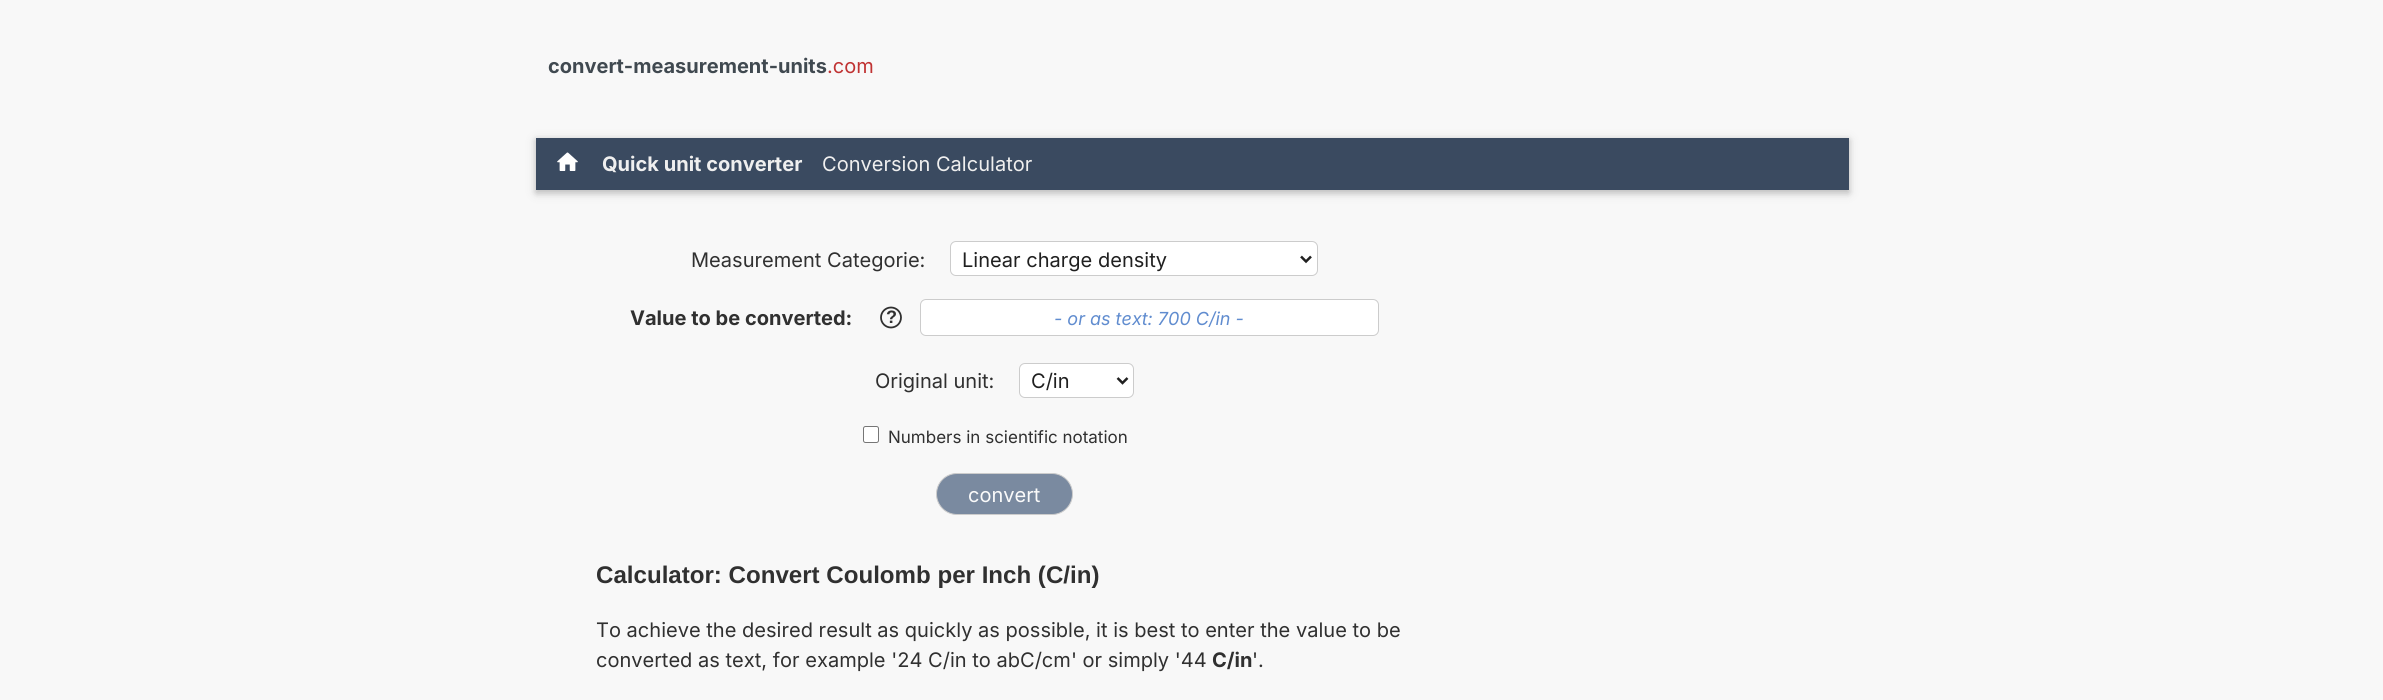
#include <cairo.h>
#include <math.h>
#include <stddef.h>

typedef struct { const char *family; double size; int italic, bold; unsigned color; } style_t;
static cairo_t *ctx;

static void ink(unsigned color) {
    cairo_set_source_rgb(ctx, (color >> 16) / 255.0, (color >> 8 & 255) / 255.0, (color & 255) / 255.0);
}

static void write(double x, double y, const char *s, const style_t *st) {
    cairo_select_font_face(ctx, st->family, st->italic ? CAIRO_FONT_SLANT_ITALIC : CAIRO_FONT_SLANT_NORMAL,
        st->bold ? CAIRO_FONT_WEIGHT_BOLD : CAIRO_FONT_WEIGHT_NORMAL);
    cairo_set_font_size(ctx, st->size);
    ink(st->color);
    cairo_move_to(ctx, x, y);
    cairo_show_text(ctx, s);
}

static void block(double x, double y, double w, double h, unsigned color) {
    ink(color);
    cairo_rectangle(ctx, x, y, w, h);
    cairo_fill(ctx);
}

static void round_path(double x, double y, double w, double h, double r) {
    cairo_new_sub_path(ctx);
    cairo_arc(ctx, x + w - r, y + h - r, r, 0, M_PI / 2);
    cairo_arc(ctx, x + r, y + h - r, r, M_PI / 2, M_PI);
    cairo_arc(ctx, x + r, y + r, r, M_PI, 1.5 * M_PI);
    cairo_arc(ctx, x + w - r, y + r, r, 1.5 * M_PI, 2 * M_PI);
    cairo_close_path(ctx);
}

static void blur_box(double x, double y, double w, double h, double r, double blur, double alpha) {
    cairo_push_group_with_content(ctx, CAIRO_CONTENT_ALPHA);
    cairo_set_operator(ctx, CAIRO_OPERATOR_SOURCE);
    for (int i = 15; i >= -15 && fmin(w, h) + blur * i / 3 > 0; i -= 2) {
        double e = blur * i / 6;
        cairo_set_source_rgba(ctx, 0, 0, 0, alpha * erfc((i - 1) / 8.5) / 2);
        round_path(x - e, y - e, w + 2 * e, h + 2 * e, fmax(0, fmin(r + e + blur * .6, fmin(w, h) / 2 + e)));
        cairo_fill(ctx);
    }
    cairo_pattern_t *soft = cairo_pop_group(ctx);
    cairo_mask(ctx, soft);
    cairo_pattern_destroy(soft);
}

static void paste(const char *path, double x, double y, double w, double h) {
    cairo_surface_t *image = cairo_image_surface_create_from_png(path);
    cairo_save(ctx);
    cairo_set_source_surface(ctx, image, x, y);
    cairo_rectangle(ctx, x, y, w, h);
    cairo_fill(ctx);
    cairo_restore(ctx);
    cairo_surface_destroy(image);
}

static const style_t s1 = {"Inter", 20, 0, 1, 0x404950};
static const style_t s2 = {"Inter", 20, 0, 0, 0xc03333};
static const style_t s3 = {"Inter", 20.05, 0, 1, 0xefefef};
static const style_t s4 = {"Inter", 20.05, 0, 0, 0xefefef};
static const style_t s5 = {"Inter", 20.05, 0, 0, 0x303030};
static const style_t s6 = {"Inter", 20.05, 0, 0, 0x202020};
static const style_t s7 = {"Inter", 20.05, 0, 1, 0x303030};
static const style_t s8 = {"Liberation Sans", 18, 0, 1, 0x303030};
static const style_t s9 = {"Inter", 18, 1, 0, 0x608ccf};
static const style_t s10 = {"Inter", 17, 0, 0, 0x303030};
static const style_t s11 = {"Inter", 20.05, 0, 0, 0xfafafa};
static const style_t s12 = {"Liberation Sans", 24.1, 0, 1, 0x303030};

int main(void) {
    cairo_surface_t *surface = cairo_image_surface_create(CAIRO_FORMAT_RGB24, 2383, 700);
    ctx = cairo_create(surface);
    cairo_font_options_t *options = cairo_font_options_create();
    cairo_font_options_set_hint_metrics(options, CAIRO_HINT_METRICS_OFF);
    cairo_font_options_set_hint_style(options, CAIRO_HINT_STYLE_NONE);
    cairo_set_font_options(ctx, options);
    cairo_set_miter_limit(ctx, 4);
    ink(0xf8f8f8);
    cairo_paint(ctx);
    write(548, 73, "convert-measurement-units", &s1);
    write(827, 73, ".com", &s2);
    ink(0x000000);
    blur_box(536, 140, 1313, 53, 0, 6, 0.12);
    blur_box(536, 140, 1313, 53, 0, 3, 0.16);
    block(536, 138, 1313, 52, 0x3a4a60);
    paste("pic1.png", 557, 152, 21, 19);
    write(602, 171, "Quick unit converter", &s3);
    write(822, 171, "Conversion Calculator", &s4);
    write(691, 267, "Measurement Categorie:", &s5);
    ink(0xffffff);
    round_path(950.5, 241.5, 367, 34, 5.5);
    cairo_fill_preserve(ctx);
    ink(0xcccccc);
    cairo_set_line_width(ctx, 1);
    cairo_stroke(ctx);
    cairo_new_path(ctx);
    cairo_move_to(ctx, 1301, 256.5);
    cairo_line_to(ctx, 1306, 261.5);
    cairo_line_to(ctx, 1311, 256.5);
    ink(0x202020);
    cairo_set_line_width(ctx, 2.5);
    cairo_stroke(ctx);
    write(962, 267, "Linear charge density", &s6);
    write(630, 325, "Value to be converted:", &s7);
    cairo_new_path(ctx);
    cairo_arc(ctx, 891, 317.5, 10, 0, 2 * M_PI);
    cairo_set_line_width(ctx, 1.8);
    cairo_stroke(ctx);
    write(886, 323, "?", &s8);
    ink(0xffffff);
    round_path(920.5, 299.5, 458, 36, 5.5);
    cairo_fill_preserve(ctx);
    ink(0xcccccc);
    cairo_set_line_width(ctx, 1);
    cairo_stroke(ctx);
    write(1054, 325, "- or as text: 700 C/in -", &s9);
    write(875, 388, "Original unit:", &s5);
    ink(0xffffff);
    round_path(1019.5, 363.5, 114, 34, 5.5);
    cairo_fill_preserve(ctx);
    ink(0xcccccc);
    cairo_stroke(ctx);
    cairo_new_path(ctx);
    cairo_move_to(ctx, 1117.5, 378);
    cairo_line_to(ctx, 1122.5, 383);
    cairo_line_to(ctx, 1127.5, 378);
    ink(0x202020);
    cairo_set_line_width(ctx, 2.5);
    cairo_stroke(ctx);
    write(1031, 388, "C/in", &s6);
    ink(0xffffff);
    round_path(863.5, 426.5, 15, 16, 2);
    cairo_fill_preserve(ctx);
    ink(0x767676);
    cairo_set_line_width(ctx, 1);
    cairo_stroke(ctx);
    write(888, 443, "Numbers in scientific notation", &s10);
    ink(0x7a8aa0);
    round_path(936.5, 473.5, 136, 41, 20.5);
    cairo_fill_preserve(ctx);
    ink(0xcccccc);
    cairo_stroke(ctx);
    write(968, 502, "convert", &s11);
    write(596, 583, "Calculator: Convert Coulomb per Inch (C/in)", &s12);
    write(596, 637, "To achieve the desired result as quickly as possible, it is best to enter the value to be", &s5);
    write(596, 667, "converted as text, for example '24 C/in to abC/cm' or simply '44", &s5);
    write(1212, 667, "C/in", &s7);
    write(1252, 667, "'.", &s5);
    cairo_surface_write_to_png(surface, "screenshot.png");
    cairo_font_options_destroy(options);
    cairo_destroy(ctx);
    cairo_surface_destroy(surface);
    return 0;
}
